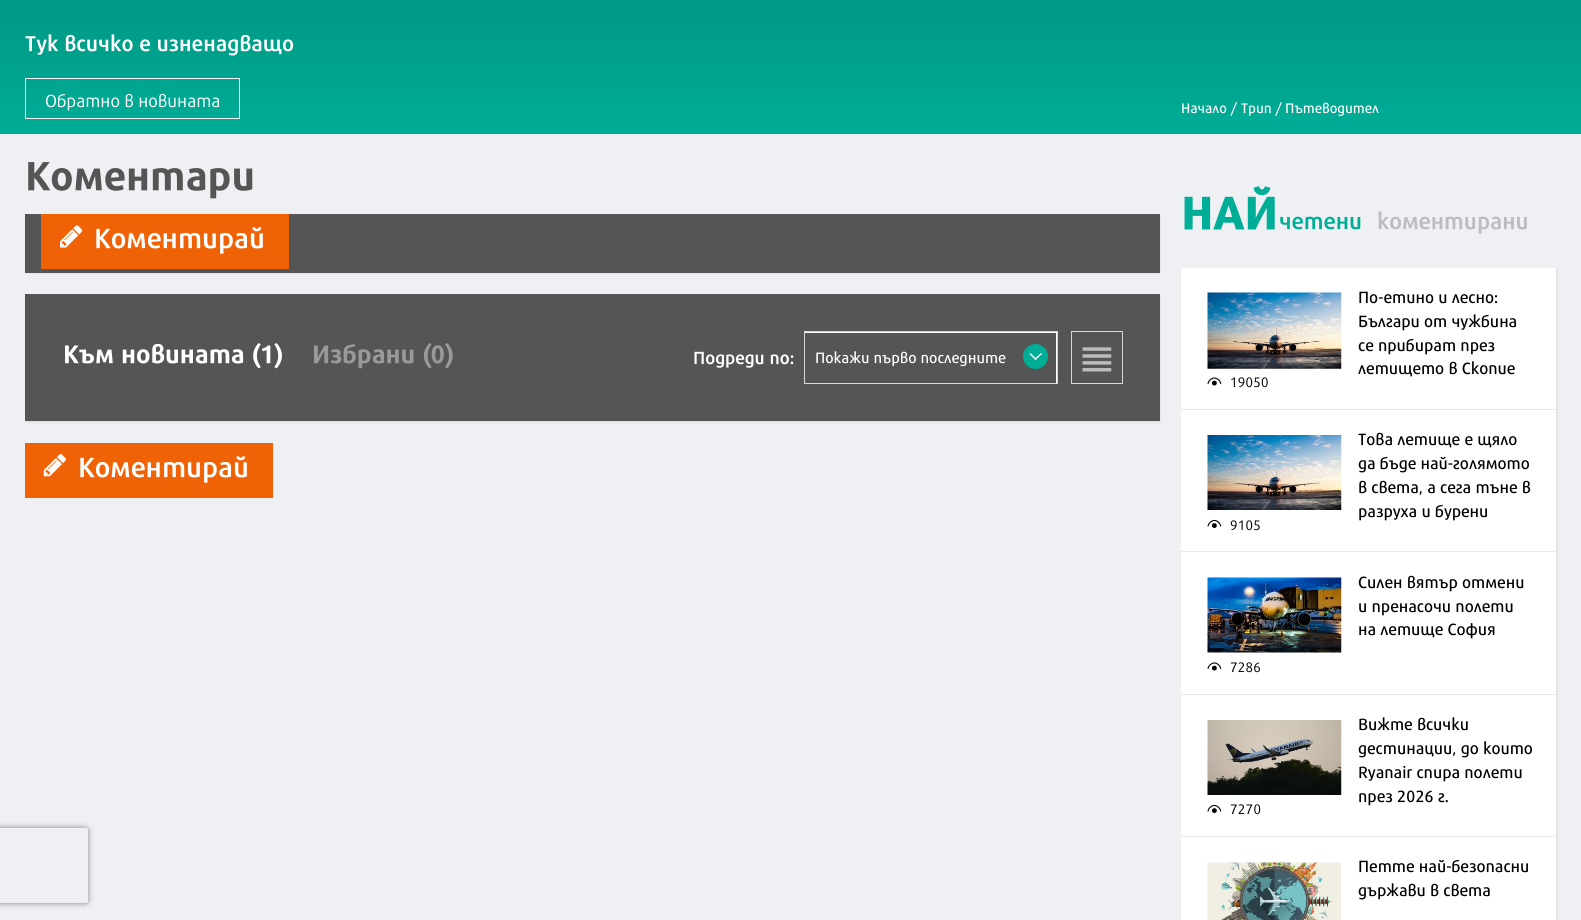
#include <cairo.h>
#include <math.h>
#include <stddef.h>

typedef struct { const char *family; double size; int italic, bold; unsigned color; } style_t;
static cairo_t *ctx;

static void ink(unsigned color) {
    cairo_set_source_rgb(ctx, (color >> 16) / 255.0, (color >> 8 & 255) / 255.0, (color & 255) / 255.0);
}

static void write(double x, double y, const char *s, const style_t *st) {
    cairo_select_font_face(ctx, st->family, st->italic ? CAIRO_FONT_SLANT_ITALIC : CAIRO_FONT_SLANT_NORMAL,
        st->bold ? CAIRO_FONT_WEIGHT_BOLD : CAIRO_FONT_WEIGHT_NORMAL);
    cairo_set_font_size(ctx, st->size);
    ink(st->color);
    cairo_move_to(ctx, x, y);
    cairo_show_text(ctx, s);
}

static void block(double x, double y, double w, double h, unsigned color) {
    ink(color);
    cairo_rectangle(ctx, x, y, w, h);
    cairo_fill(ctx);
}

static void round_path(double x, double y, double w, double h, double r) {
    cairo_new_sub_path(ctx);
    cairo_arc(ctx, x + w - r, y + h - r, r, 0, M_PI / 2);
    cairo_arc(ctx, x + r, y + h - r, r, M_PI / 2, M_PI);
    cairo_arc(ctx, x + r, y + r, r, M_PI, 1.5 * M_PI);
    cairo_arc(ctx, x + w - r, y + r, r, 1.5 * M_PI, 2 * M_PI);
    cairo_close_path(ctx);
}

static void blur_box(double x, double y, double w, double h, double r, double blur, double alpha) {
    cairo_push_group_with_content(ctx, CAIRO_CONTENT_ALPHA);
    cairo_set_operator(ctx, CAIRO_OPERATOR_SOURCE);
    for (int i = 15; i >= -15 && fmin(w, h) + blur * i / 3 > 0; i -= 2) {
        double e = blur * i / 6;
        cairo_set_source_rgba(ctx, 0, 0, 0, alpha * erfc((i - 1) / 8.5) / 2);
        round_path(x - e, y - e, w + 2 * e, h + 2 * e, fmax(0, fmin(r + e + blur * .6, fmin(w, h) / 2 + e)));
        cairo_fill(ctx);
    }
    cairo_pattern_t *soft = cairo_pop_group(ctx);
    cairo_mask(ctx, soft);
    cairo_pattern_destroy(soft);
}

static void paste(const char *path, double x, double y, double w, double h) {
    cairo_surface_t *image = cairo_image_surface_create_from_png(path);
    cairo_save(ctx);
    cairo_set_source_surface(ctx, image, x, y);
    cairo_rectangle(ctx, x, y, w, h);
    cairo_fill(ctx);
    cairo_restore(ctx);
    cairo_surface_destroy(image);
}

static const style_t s1 = {"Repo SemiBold", 21.25, 0, 0, 0xffffff};
static const style_t s2 = {"Repo", 17.5, 0, 0, 0xffffff};
static const style_t s3 = {"Repo Medium", 13.75, 0, 0, 0xffffff};
static const style_t s4 = {"Repo", 40, 0, 1, 0x555555};
static const style_t s5 = {"Repo SemiBold", 27.5, 0, 0, 0xffffff};
static const style_t s6 = {"Repo", 25, 0, 1, 0xffffff};
static const style_t s7 = {"Repo", 25, 0, 1, 0x999999};
static const style_t s8 = {"Repo SemiBold", 17.5, 0, 0, 0xffffff};
static const style_t s9 = {"Repo Medium", 15, 0, 0, 0xffffff};
static const style_t s10 = {"Repo ExtraBold", 46, 0, 0, 0x00ad96};
static const style_t s11 = {"Repo SemiBold", 22.5, 0, 0, 0x00ad96};
static const style_t s12 = {"Repo SemiBold", 22.5, 0, 0, 0xbbbcbe};
static const style_t s13 = {"Repo Medium", 16.25, 0, 0, 0x000000};
static const style_t s14 = {"Repo", 13.75, 0, 0, 0x000000};

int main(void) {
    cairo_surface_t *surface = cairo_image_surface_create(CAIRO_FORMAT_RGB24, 1581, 920);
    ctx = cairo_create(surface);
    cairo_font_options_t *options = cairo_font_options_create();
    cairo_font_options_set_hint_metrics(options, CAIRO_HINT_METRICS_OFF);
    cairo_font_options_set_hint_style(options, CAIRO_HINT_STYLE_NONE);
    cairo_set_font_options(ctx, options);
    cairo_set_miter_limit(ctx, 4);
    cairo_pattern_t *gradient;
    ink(0xeff0f3);
    cairo_paint(ctx);
    gradient = cairo_pattern_create_linear(791, -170, 791, 134);
    cairo_pattern_add_color_stop_rgba(gradient, 0, 0, 0.494, 0.431, 1);
    cairo_pattern_add_color_stop_rgba(gradient, 1, 0, 0.678, 0.588, 1);
    cairo_set_source(ctx, gradient);
    cairo_pattern_destroy(gradient);
    cairo_rectangle(ctx, 0, 0, 1581, 134);
    cairo_fill(ctx);
    write(25, 51, "Тук всичко е изненадващо", &s1);
    cairo_rectangle(ctx, 25.5, 78.5, 214, 40);
    cairo_set_line_width(ctx, 1);
    cairo_stroke(ctx);
    write(45, 107, "Обратно в новината", &s2);
    write(1181, 113, "Начало /", &s3);
    write(1241, 113, "Трип /", &s3);
    write(1285, 113, "Пътеводител", &s3);
    write(25, 190, "Коментари", &s4);
    ink(0x000000);
    blur_box(26, 215, 1135, 59, 0, 1, 0.06);
    block(25, 214, 1135, 59, 0x555555);
    block(41, 214, 248, 55, 0xef6205);
    paste("pic1.png", 60, 225, 23, 23);
    write(94, 248, "Коментирай", &s5);
    ink(0x000000);
    blur_box(26, 295, 1135, 128, 0, 1, 0.06);
    block(25, 294, 1135, 127, 0x555555);
    write(63, 363, "Към новината (1)", &s6);
    write(312, 363, "Избрани (0)", &s7);
    write(693, 364, "Подреди по:", &s8);
    cairo_rectangle(ctx, 804.5, 331.5, 253, 52);
    cairo_fill_preserve(ctx);
    ink(0xd7d7d7);
    cairo_stroke(ctx);
    block(805, 333, 251, 50, 0x555555);
    write(815, 363, "Покажи първо последните", &s9);
    ink(0x00ad95);
    cairo_new_path(ctx);
    cairo_arc(ctx, 1035.5, 356.5, 12.5, 0, 2 * M_PI);
    cairo_fill(ctx);
    ink(0xffffff);
    cairo_new_path(ctx);
    cairo_move_to(ctx, 1041, 353);
    cairo_line_to(ctx, 1042, 354);
    cairo_line_to(ctx, 1035.5, 360);
    cairo_line_to(ctx, 1034.5, 359);
    cairo_close_path(ctx);
    cairo_fill(ctx);
    cairo_new_path(ctx);
    cairo_move_to(ctx, 1030.5, 353);
    cairo_line_to(ctx, 1036.5, 359);
    cairo_line_to(ctx, 1035.5, 360);
    cairo_line_to(ctx, 1029.5, 354);
    cairo_close_path(ctx);
    cairo_fill(ctx);
    cairo_rectangle(ctx, 1071.5, 331.5, 51, 52);
    ink(0xd7d7d7);
    cairo_stroke(ctx);
    paste("pic2.png", 1082, 347, 30, 25);
    block(25, 443, 248, 55, 0xef6205);
    paste("pic3.png", 43, 454, 23, 23);
    write(78, 477, "Коментирай", &s5);
    write(1181, 229, "НАЙ", &s10);
    write(1279, 229, "четени", &s11);
    write(1377, 229, "коментирани", &s12);
    ink(0x000000);
    blur_box(1183, 269, 375, 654, 0, 1, 0.06);
    block(1181, 268, 375, 652, 0xffffff);
    block(1181, 409, 375, 1, 0xebebeb);
    write(1358, 303, "По-етино и лесно:", &s13);
    write(1358, 327, "Българи от чужбина", &s13);
    write(1358, 351, "се прибират през", &s13);
    write(1358, 374, "летището в Скопие", &s13);
    paste("pic4.png", 1207, 292, 135, 77);
    paste("pic5.png", 1207, 377, 15, 9);
    write(1230, 387, "19050", &s14);
    block(1181, 551, 375, 1, 0xebebeb);
    write(1358, 445, "Това летище е щяло", &s13);
    write(1358, 469, "да бъде най-голямото", &s13);
    write(1358, 493, "в света, а сега тъне в", &s13);
    write(1358, 517, "разруха и бурени", &s13);
    paste("pic6.png", 1207, 435, 135, 75);
    paste("pic7.png", 1207, 519, 15, 9);
    write(1230, 530, "9105", &s14);
    block(1181, 694, 375, 1, 0xebebeb);
    write(1358, 588, "Силен вятър отмени", &s13);
    write(1358, 612, "и пренасочи полети", &s13);
    write(1358, 635, "на летище София", &s13);
    paste("pic8.png", 1207, 577, 135, 76);
    paste("pic5.png", 1207, 662, 15, 9);
    write(1230, 672, "7286", &s14);
    block(1181, 836, 375, 1, 0xebebeb);
    write(1358, 730, "Вижте всички", &s13);
    write(1358, 754, "дестинации, до които", &s13);
    write(1358, 778, "Ryanair спира полети", &s13);
    write(1358, 802, "през 2026 г.", &s13);
    paste("pic9.png", 1207, 720, 135, 75);
    paste("pic7.png", 1207, 804, 15, 9);
    write(1230, 814, "7270", &s14);
    paste("pic10.png", 1207, 862, 135, 58);
    write(1358, 872, "Петте най-безопасни", &s13);
    write(1358, 896, "държави в света", &s13);
    cairo_save(ctx);
    cairo_set_fill_rule(ctx, CAIRO_FILL_RULE_EVEN_ODD);
    cairo_new_path(ctx);
    cairo_move_to(ctx, 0, 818);
    cairo_line_to(ctx, 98, 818);
    cairo_line_to(ctx, 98, 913);
    cairo_line_to(ctx, 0, 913);
    cairo_close_path(ctx);
    cairo_move_to(ctx, -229.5, 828);
    cairo_line_to(ctx, 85.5, 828);
    cairo_curve_to(ctx, 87, 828, 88, 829, 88, 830.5);
    cairo_line_to(ctx, 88, 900.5);
    cairo_curve_to(ctx, 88, 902, 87, 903, 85.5, 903);
    cairo_line_to(ctx, -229.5, 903);
    cairo_curve_to(ctx, -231, 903, -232, 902, -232, 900.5);
    cairo_line_to(ctx, -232, 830.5);
    cairo_curve_to(ctx, -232, 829, -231, 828, -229.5, 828);
    cairo_close_path(ctx);
    cairo_clip(ctx);
    ink(0x808080);
    blur_box(-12, 828, 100, 75, 2.5, 3, 1);
    cairo_restore(ctx);
    cairo_surface_write_to_png(surface, "screenshot.png");
    cairo_font_options_destroy(options);
    cairo_destroy(ctx);
    cairo_surface_destroy(surface);
    return 0;
}
